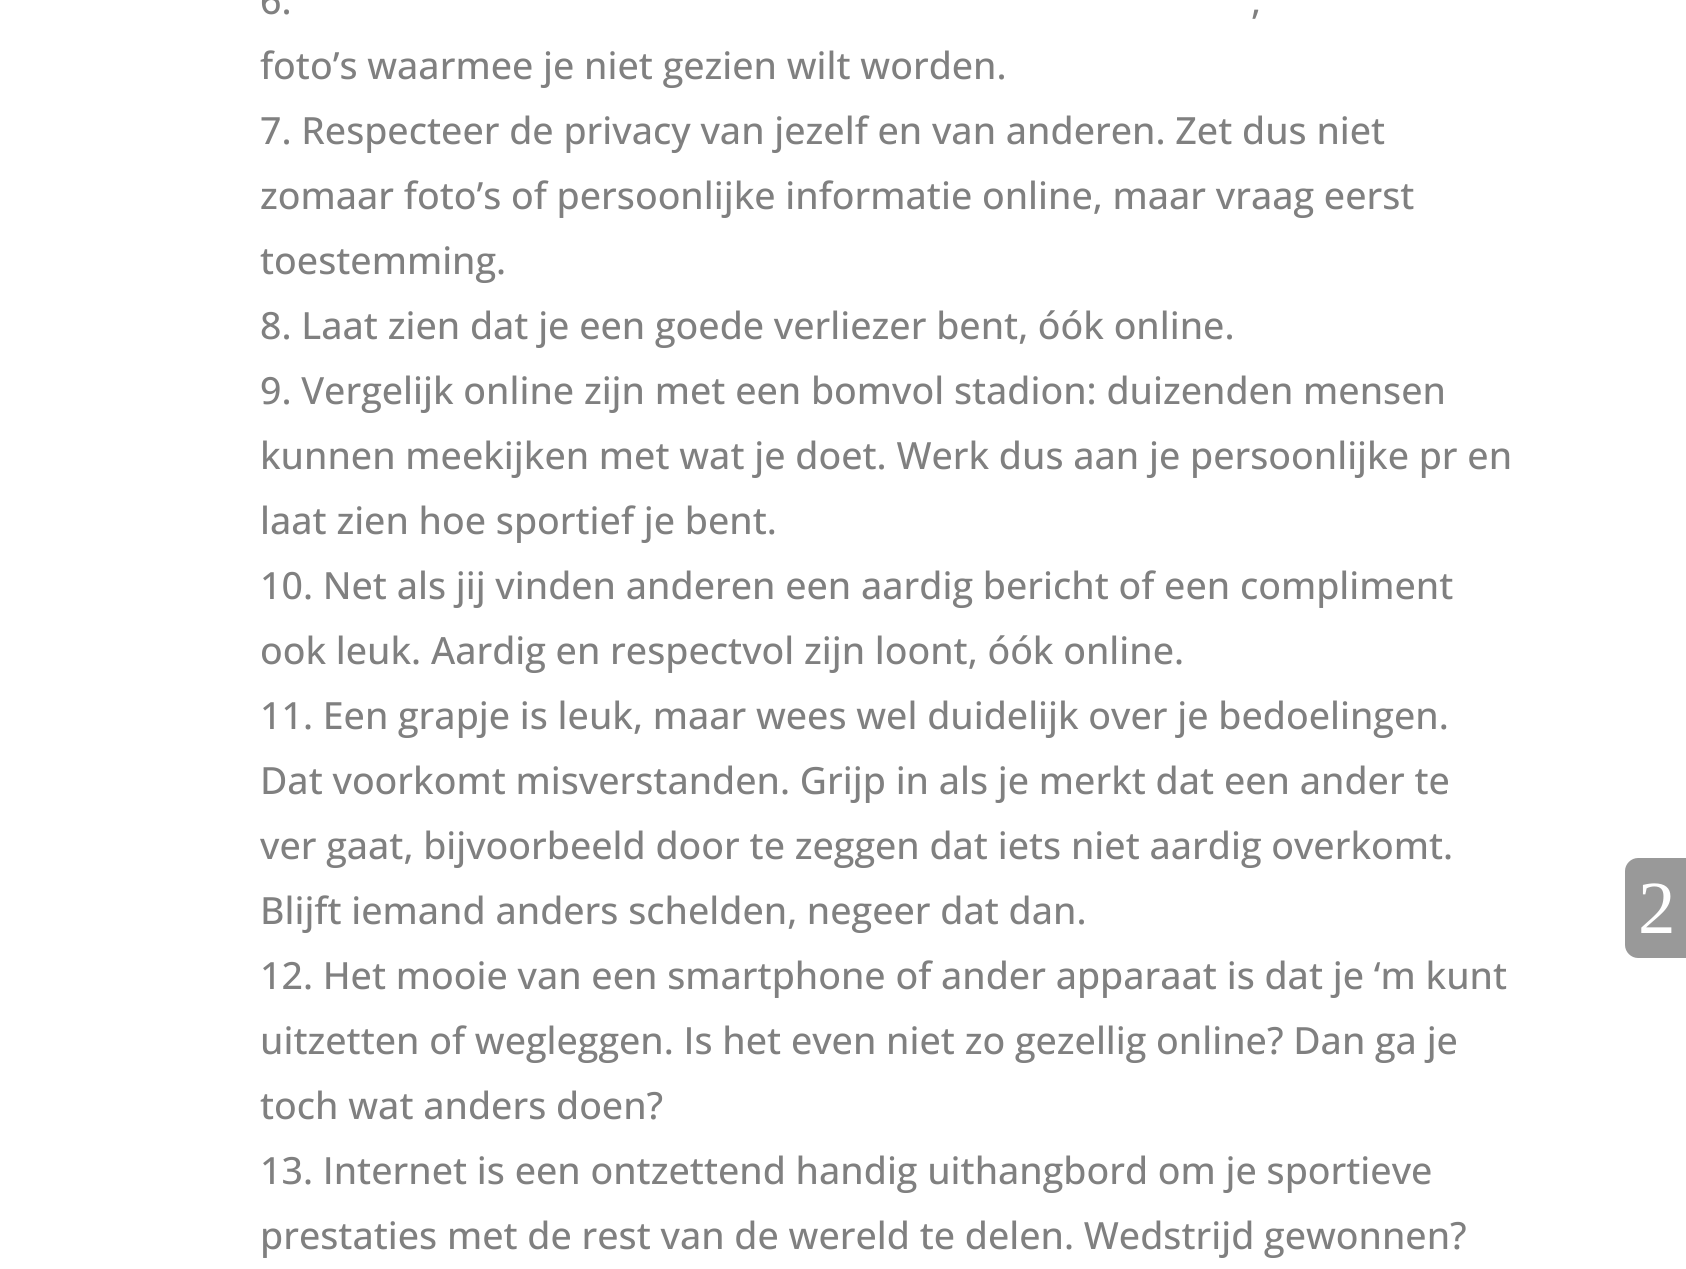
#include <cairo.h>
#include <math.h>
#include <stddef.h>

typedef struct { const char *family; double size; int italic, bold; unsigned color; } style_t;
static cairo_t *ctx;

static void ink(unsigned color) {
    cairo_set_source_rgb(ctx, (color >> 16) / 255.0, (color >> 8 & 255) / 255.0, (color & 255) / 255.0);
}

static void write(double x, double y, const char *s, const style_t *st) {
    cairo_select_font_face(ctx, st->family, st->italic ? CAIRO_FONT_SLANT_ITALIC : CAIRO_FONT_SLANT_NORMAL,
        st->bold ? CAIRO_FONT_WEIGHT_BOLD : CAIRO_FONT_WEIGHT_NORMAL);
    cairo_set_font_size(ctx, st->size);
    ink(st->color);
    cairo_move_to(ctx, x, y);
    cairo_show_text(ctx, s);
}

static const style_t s1 = {"Open Sans Medium", 37.5, 0, 0, 0x808080};
static const style_t s2 = {"Liberation Serif", 75, 0, 0, 0xffffff};

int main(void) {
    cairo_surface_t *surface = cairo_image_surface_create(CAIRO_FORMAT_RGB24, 1686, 1269);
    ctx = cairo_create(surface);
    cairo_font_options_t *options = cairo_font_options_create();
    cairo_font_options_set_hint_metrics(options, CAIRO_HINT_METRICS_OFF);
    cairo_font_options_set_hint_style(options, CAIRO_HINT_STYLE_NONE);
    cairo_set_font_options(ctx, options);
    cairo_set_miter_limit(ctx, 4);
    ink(0xffffff);
    cairo_paint(ctx);
    write(260, 14, "6.", &s1);
    write(1251, 14, ",", &s1);
    write(260, 79, "foto’s waarmee je niet gezien wilt worden.", &s1);
    write(260, 144, "7. Respecteer de privacy van jezelf en van anderen. Zet dus niet", &s1);
    write(260, 209, "zomaar foto’s of persoonlijke informatie online, maar vraag eerst", &s1);
    write(260, 274, "toestemming.", &s1);
    write(260, 339, "8. Laat zien dat je een goede verliezer bent, óók online.", &s1);
    write(260, 404, "9. Vergelijk online zijn met een bomvol stadion: duizenden mensen", &s1);
    write(260, 469, "kunnen meekijken met wat je doet. Werk dus aan je persoonlijke pr en", &s1);
    write(260, 534, "laat zien hoe sportief je bent.", &s1);
    write(260, 599, "10. Net als jij vinden anderen een aardig bericht of een compliment", &s1);
    write(260, 664, "ook leuk. Aardig en respectvol zijn loont, óók online.", &s1);
    write(260, 729, "11. Een grapje is leuk, maar wees wel duidelijk over je bedoelingen.", &s1);
    write(260, 794, "Dat voorkomt misverstanden. Grijp in als je merkt dat een ander te", &s1);
    write(260, 859, "ver gaat, bijvoorbeeld door te zeggen dat iets niet aardig overkomt.", &s1);
    write(260, 924, "Blijft iemand anders schelden, negeer dat dan.", &s1);
    write(260, 989, "12. Het mooie van een smartphone of ander apparaat is dat je ‘m kunt", &s1);
    write(260, 1054, "uitzetten of wegleggen. Is het even niet zo gezellig online? Dan ga je", &s1);
    write(260, 1119, "toch wat anders doen?", &s1);
    write(260, 1184, "13. Internet is een ontzettend handig uithangbord om je sportieve", &s1);
    write(260, 1249, "prestaties met de rest van de wereld te delen. Wedstrijd gewonnen?", &s1);
    ink(0x999999);
    cairo_new_path(ctx);
    cairo_move_to(ctx, 1638, 858);
    cairo_line_to(ctx, 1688, 858);
    cairo_line_to(ctx, 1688, 958);
    cairo_line_to(ctx, 1638, 958);
    cairo_curve_to(ctx, 1631, 958, 1625, 952, 1625, 945);
    cairo_line_to(ctx, 1625, 871);
    cairo_curve_to(ctx, 1625, 864, 1631, 858, 1638, 858);
    cairo_close_path(ctx);
    cairo_fill(ctx);
    write(1638, 933, "2", &s2);
    cairo_surface_write_to_png(surface, "screenshot.png");
    cairo_font_options_destroy(options);
    cairo_destroy(ctx);
    cairo_surface_destroy(surface);
    return 0;
}
